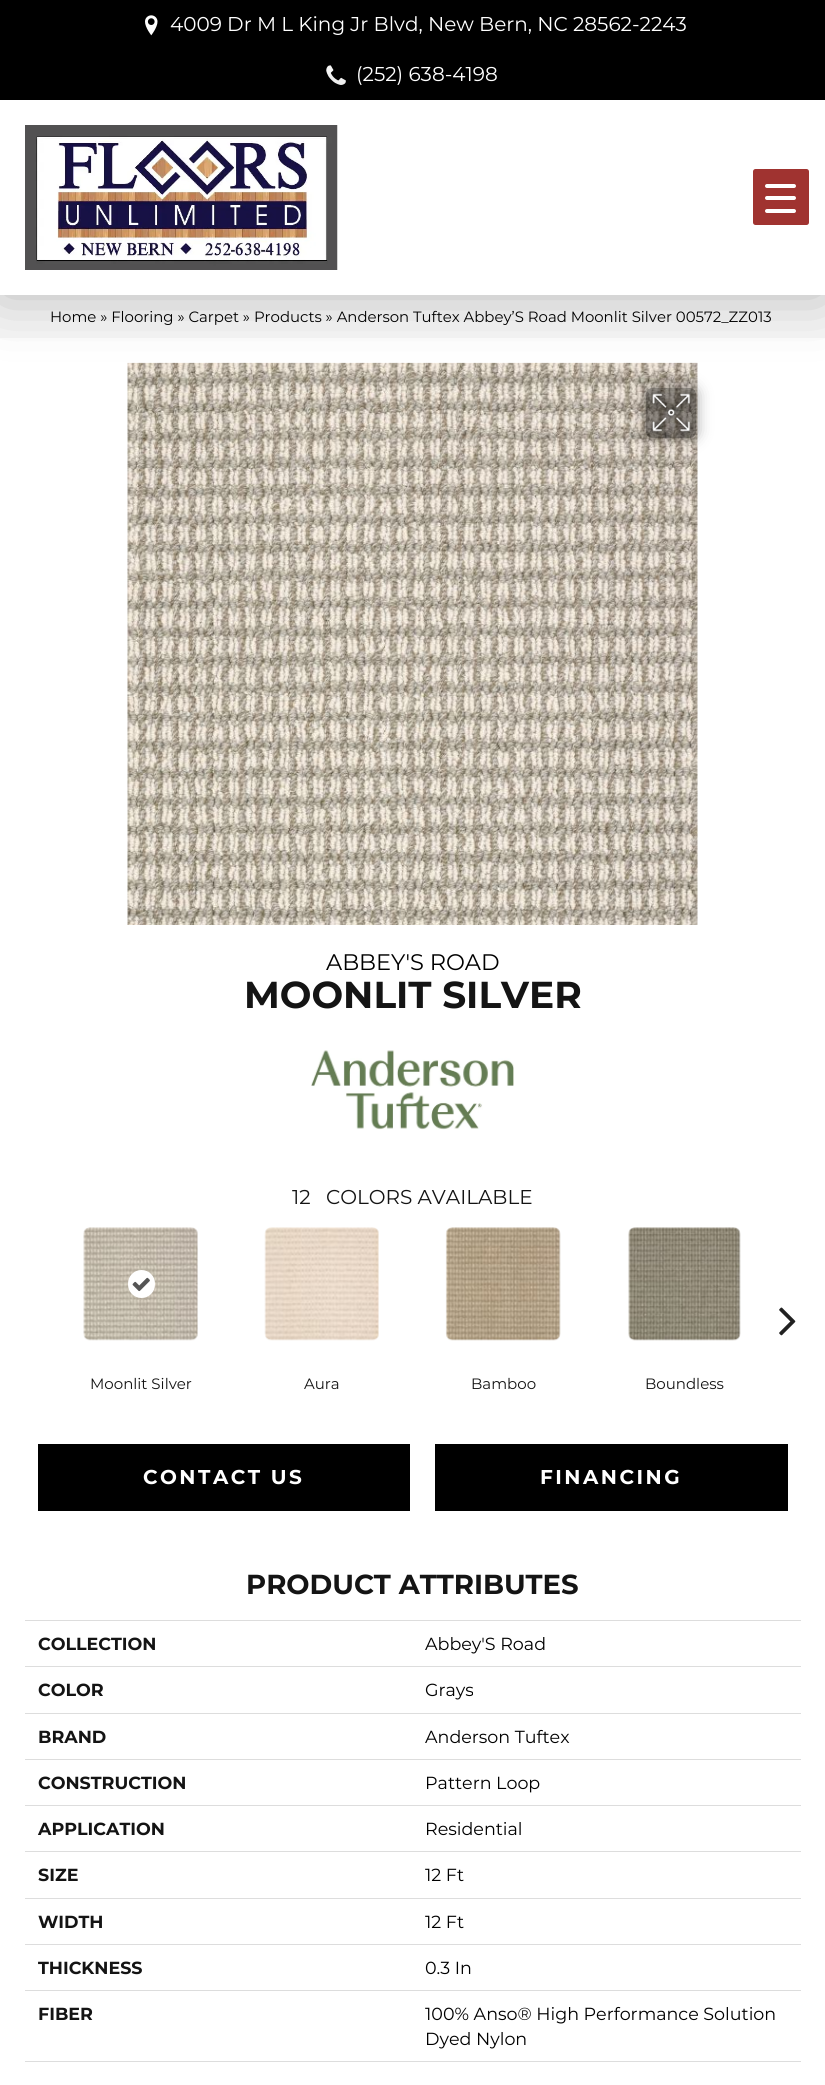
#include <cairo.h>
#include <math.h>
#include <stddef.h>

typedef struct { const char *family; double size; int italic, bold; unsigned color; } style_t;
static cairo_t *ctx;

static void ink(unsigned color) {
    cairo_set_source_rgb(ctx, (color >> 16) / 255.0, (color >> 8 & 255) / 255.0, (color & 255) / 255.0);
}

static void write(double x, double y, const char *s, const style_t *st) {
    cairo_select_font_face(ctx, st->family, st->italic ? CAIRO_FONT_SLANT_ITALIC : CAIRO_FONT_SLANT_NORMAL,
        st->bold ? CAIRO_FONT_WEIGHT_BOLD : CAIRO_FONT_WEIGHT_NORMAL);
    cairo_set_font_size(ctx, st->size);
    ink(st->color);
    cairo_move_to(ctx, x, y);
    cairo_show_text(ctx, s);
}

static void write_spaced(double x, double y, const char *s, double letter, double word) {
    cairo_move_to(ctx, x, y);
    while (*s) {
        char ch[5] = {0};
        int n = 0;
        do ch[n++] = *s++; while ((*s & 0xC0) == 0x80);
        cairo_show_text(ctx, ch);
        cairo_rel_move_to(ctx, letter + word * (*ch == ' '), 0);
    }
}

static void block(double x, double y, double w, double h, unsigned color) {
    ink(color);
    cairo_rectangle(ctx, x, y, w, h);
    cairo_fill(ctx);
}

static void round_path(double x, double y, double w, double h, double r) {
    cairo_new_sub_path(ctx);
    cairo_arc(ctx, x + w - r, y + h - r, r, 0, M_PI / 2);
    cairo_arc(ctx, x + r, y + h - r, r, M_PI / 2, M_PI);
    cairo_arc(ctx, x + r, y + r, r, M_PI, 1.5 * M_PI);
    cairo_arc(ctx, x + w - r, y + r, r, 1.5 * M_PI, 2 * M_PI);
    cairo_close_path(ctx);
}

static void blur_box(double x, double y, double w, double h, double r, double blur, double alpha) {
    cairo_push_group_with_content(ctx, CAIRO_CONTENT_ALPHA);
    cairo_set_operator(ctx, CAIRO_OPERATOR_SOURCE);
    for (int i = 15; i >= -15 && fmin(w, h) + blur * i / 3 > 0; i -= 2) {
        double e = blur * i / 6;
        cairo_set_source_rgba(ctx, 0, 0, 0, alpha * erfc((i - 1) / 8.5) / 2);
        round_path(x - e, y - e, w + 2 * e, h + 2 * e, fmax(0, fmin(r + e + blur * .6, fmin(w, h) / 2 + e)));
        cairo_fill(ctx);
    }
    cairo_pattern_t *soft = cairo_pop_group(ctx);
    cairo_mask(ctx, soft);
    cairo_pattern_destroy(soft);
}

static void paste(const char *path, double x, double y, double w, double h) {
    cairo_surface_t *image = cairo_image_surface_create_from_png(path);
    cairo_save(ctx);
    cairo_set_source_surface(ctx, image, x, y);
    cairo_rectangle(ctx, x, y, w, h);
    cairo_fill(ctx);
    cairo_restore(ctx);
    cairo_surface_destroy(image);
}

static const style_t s1 = {"Montserrat", 20, 0, 0, 0xffffff};
static const style_t s2 = {"Montserrat", 14.9, 0, 0, 0x000000};
static const style_t s3 = {"Montserrat", 22.5, 0, 0, 0x000000};
static const style_t s4 = {"Montserrat", 37.5, 0, 1, 0x141414};
static const style_t s5 = {"Montserrat", 20, 0, 0, 0x141414};
static const style_t s6 = {"Montserrat", 15, 0, 0, 0x141414};
static const style_t s7 = {"Montserrat", 27.5, 0, 1, 0x141414};
static const style_t s8 = {"Montserrat", 17.5, 0, 1, 0x141414};
static const style_t s9 = {"Montserrat", 17.5, 0, 0, 0x000000};

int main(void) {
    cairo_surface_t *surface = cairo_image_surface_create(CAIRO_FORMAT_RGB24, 825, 2085);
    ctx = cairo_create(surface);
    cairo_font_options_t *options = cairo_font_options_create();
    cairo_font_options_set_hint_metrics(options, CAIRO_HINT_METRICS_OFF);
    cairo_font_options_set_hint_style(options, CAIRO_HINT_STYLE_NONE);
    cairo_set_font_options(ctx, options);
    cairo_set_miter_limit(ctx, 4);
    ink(0xffffff);
    cairo_paint(ctx);
    block(0, 0, 825, 100, 0x000000);
    paste("pic2.png", 145, 15, 13, 21);
    paste("pic3.png", 326, 65, 20, 20);
    block(0, 295, 825, 43, 0xf7f7f7);
    cairo_save(ctx);
    cairo_set_fill_rule(ctx, CAIRO_FILL_RULE_EVEN_ODD);
    cairo_new_path(ctx);
    cairo_move_to(ctx, 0, 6);
    cairo_line_to(ctx, 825, 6);
    cairo_line_to(ctx, 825, 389);
    cairo_line_to(ctx, 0, 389);
    cairo_close_path(ctx);
    cairo_move_to(ctx, 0, 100);
    cairo_line_to(ctx, 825, 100);
    cairo_line_to(ctx, 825, 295);
    cairo_line_to(ctx, 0, 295);
    cairo_close_path(ctx);
    cairo_clip(ctx);
    ink(0x000000);
    blur_box(0, 100, 825, 195, 0, 31, 0.27);
    cairo_restore(ctx);
    paste("pic1.png", 25, 125, 313, 145);
    write(170, 31, "4009 Dr M L King Jr Blvd, New Bern, NC 28562-2243", &s1);
    write(356, 81, "(252) 638-4198", &s1);
    write(50, 322, "Home » Flooring » Carpet » Products » Anderson Tuftex Abbey’S Road Moonlit Silver 00572_ZZ013", &s2);
    paste("pic4.png", 127, 362, 571, 563);
    cairo_save(ctx);
    cairo_set_fill_rule(ctx, CAIRO_FILL_RULE_EVEN_ODD);
    cairo_new_path(ctx);
    cairo_move_to(ctx, 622, 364);
    cairo_line_to(ctx, 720, 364);
    cairo_line_to(ctx, 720, 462);
    cairo_line_to(ctx, 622, 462);
    cairo_close_path(ctx);
    cairo_move_to(ctx, 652, 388);
    cairo_line_to(ctx, 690, 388);
    cairo_curve_to(ctx, 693.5, 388, 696, 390.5, 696, 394);
    cairo_line_to(ctx, 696, 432);
    cairo_curve_to(ctx, 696, 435.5, 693.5, 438, 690, 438);
    cairo_line_to(ctx, 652, 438);
    cairo_curve_to(ctx, 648.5, 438, 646, 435.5, 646, 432);
    cairo_line_to(ctx, 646, 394);
    cairo_curve_to(ctx, 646, 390.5, 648.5, 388, 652, 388);
    cairo_close_path(ctx);
    cairo_clip(ctx);
    ink(0x000000);
    blur_box(646, 388, 50, 50, 6, 7.5, 0.41);
    cairo_restore(ctx);
    cairo_set_source_rgba(ctx, 0, 0, 0, 0.4);
    round_path(646, 388, 50, 50, 6);
    cairo_fill(ctx);
    paste("pic5.png", 648, 390, 46, 45);
    write(326, 970, "ABBEY'S ROAD", &s3);
    write(244, 1008, "MOONLIT SILVER", &s4);
    paste("pic6.png", 311, 1050, 203, 80);
    write(292, 1204, "12", &s5);
    write(326, 1204, "COLORS AVAILABLE", &s5);
    paste("pic7.png", 779, 1307, 17, 29);
    paste("pic8.png", 83, 1227, 115, 114);
    ink(0xffffff);
    round_path(128, 1270, 27, 28, 13.5);
    cairo_fill(ctx);
    paste("pic9.png", 132, 1277, 18, 15);
    write(90, 1389, "Moonlit Silver", &s6);
    paste("pic10.png", 264, 1227, 115, 114);
    write(304, 1389, "Aura", &s6);
    paste("pic11.png", 445, 1227, 116, 114);
    write(471, 1389, "Bamboo", &s6);
    paste("pic12.png", 628, 1227, 113, 114);
    write(645, 1389, "Boundless", &s6);
    block(38, 1444, 372, 67, 0x000000);
    cairo_select_font_face(ctx, "Montserrat", CAIRO_FONT_SLANT_NORMAL, CAIRO_FONT_WEIGHT_BOLD);
    cairo_set_font_size(ctx, 20);
    ink(0xffffff);
    write_spaced(143, 1484, "CONTACT US", 2.5, 0);
    block(435, 1444, 353, 67, 0x000000);
    ink(0xffffff);
    write_spaced(540, 1484, "FINANCING", 2.5, 0);
    write(246, 1594, "PRODUCT ATTRIBUTES", &s7);
    write(38, 1650, "COLLECTION", &s8);
    block(25, 1620, 776, 1, 0xdddddd);
    write(425, 1650, "Abbey'S Road", &s9);
    write(38, 1696, "COLOR", &s8);
    block(25, 1666, 776, 1, 0xdddddd);
    write(425, 1696, "Grays", &s9);
    write(38, 1743, "BRAND", &s8);
    block(25, 1713, 776, 1, 0xdddddd);
    write(425, 1743, "Anderson Tuftex", &s9);
    write(38, 1789, "CONSTRUCTION", &s8);
    block(25, 1759, 776, 1, 0xdddddd);
    write(425, 1789, "Pattern Loop", &s9);
    write(38, 1835, "APPLICATION", &s8);
    block(25, 1805, 776, 1, 0xdddddd);
    write(425, 1835, "Residential", &s9);
    write(38, 1881, "SIZE", &s8);
    block(25, 1851, 776, 1, 0xdddddd);
    write(425, 1881, "12 Ft", &s9);
    write(38, 1928, "WIDTH", &s8);
    block(25, 1898, 776, 1, 0xdddddd);
    write(425, 1928, "12 Ft", &s9);
    write(38, 1974, "THICKNESS", &s8);
    block(25, 1944, 776, 1, 0xdddddd);
    write(425, 1974, "0.3 In", &s9);
    write(38, 2020, "FIBER", &s8);
    block(25, 1990, 776, 1, 0xdddddd);
    write(425, 2020, "100% Anso® High Performance Solution", &s9);
    write(425, 2045, "Dyed Nylon", &s9);
    block(25, 2061, 776, 1, 0xdddddd);
    ink(0xa03330);
    round_path(753, 169, 56, 56, 2.5);
    cairo_fill(ctx);
    ink(0xffffff);
    round_path(765, 196, 31, 4, 2);
    cairo_fill(ctx);
    round_path(765, 184, 31, 4, 2);
    cairo_fill(ctx);
    round_path(765, 209, 31, 4, 2);
    cairo_fill(ctx);
    cairo_surface_write_to_png(surface, "screenshot.png");
    cairo_font_options_destroy(options);
    cairo_destroy(ctx);
    cairo_surface_destroy(surface);
    return 0;
}
